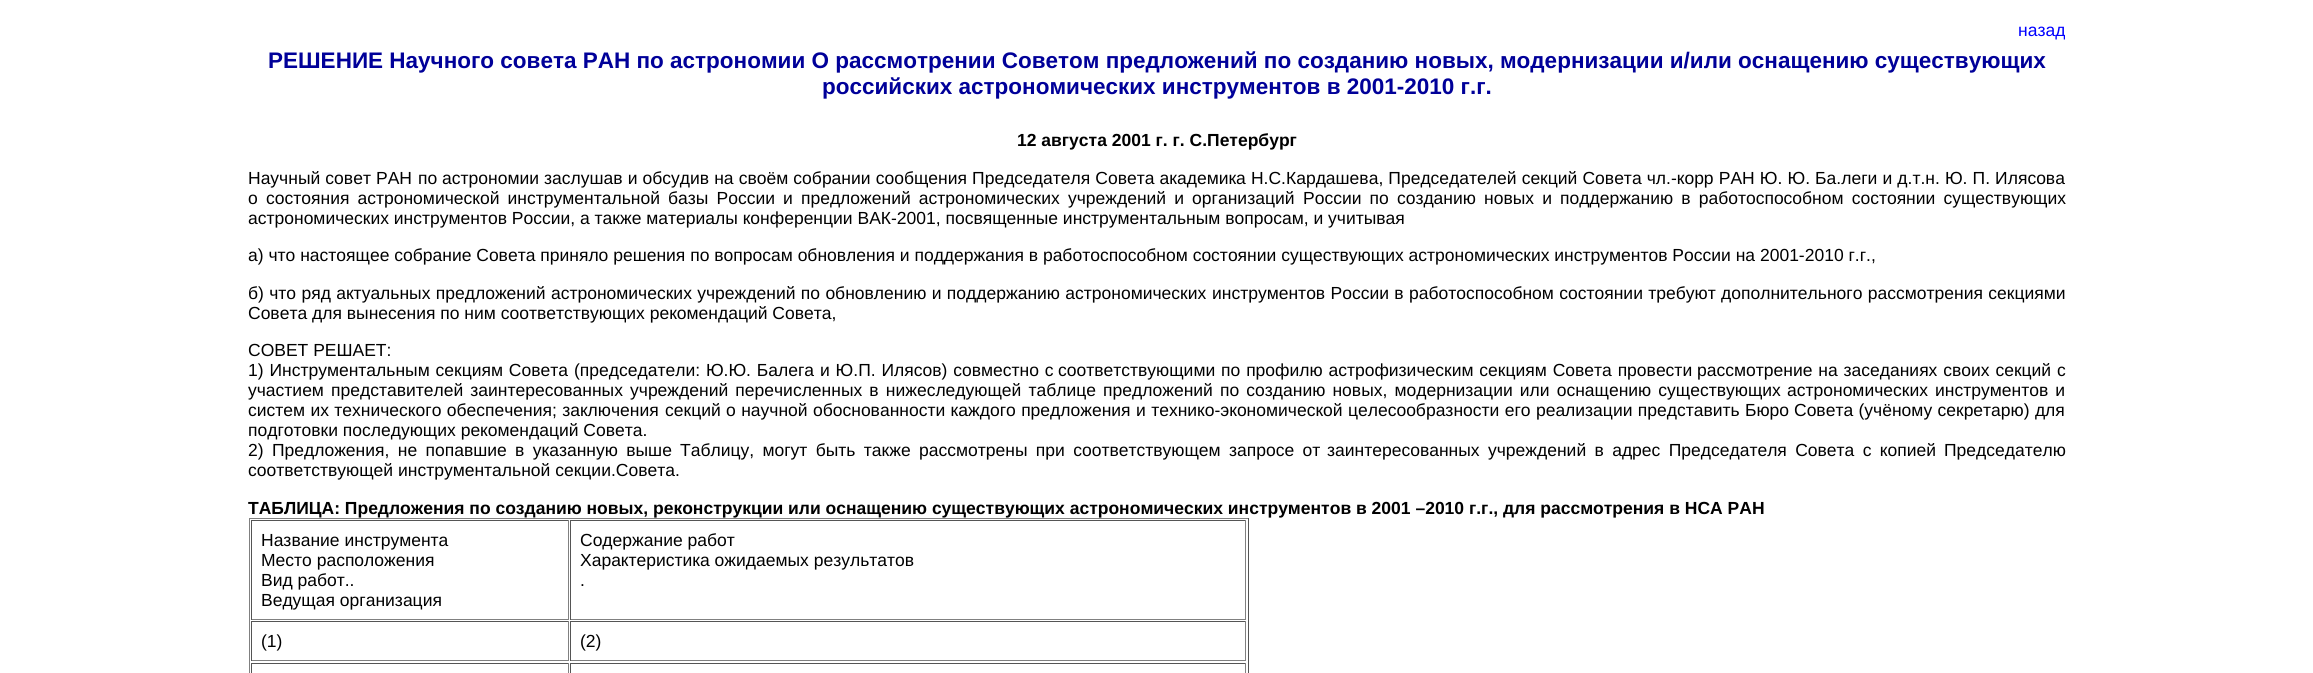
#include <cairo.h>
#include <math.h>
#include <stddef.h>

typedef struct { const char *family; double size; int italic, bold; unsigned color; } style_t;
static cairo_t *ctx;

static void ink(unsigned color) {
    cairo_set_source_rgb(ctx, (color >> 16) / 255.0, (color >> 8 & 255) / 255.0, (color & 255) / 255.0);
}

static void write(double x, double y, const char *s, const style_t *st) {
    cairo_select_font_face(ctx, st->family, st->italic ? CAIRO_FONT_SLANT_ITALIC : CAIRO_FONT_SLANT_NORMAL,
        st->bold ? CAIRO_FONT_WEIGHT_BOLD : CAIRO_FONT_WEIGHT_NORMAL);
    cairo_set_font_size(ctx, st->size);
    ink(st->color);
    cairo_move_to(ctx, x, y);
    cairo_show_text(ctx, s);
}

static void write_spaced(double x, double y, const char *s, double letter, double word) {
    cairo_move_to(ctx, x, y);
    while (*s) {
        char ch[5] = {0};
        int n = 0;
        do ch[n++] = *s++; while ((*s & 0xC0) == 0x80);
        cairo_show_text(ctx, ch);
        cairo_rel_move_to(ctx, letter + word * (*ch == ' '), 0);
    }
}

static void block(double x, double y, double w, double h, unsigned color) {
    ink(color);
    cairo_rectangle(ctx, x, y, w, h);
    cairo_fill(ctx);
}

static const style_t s1 = {"Liberation Sans", 17.5, 0, 0, 0x0000ff};
static const style_t s2 = {"Liberation Sans", 22.5, 0, 1, 0x000099};
static const style_t s3 = {"Liberation Sans", 17.5, 0, 1, 0x000000};
static const style_t s4 = {"Liberation Sans", 17.5, 0, 0, 0x000000};

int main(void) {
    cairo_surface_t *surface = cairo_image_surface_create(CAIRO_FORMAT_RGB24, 2313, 673);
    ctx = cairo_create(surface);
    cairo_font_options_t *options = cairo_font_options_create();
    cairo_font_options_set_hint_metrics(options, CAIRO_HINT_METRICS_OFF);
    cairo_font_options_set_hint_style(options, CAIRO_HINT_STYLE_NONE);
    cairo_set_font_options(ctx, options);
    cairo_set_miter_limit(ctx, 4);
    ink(0xffffff);
    cairo_paint(ctx);
    write(2018, 36, "назад", &s1);
    write(268, 68, "РЕШЕНИЕ Научного совета РАН по астрономии О рассмотрении Советом предложений по созданию новых, модернизации и/или оснащению существующих", &s2);
    write(822, 94, "российских астрономических инструментов в 2001-2010 г.г.", &s2);
    write(1017, 146, "12 августа 2001 г. г. С.Петербург", &s3);
    cairo_select_font_face(ctx, "Liberation Sans", CAIRO_FONT_SLANT_NORMAL, CAIRO_FONT_WEIGHT_NORMAL);
    write_spaced(248, 184, "Научный совет РАН", 0, 0.25);
    write(418, 184, "по астрономии", &s4);
    write_spaced(544, 184, "заслушав и обсудив на своём собрании сообщения Председателя Совета академика Н.С.Кардашева, Председателей секций Совета чл.-корр РАН Ю. Ю. Ба.леги и д.т.н. Ю. П. Илясова", 0, 0.25);
    write(248, 204, "о", &s4);
    write_spaced(266, 204, "состояния астрономической инструментальной базы России и предложений астрономических учреждений и организаций", 0, 3.25);
    write_spaced(1303, 204, "России по созданию новых и поддержанию в работоспособном состоянии существующих", 0, 3.25);
    write(248, 224, "астрономических инструментов России, а также материалы конференции ВАК-2001, посвященные инструментальным вопросам, и учитывая", &s4);
    write(248, 261, "а) что настоящее собрание Совета приняло решения по вопросам обновления и поддержания в работоспособном состоянии существующих астрономических инструментов России на 2001-2010 г.г.,", &s4);
    write_spaced(248, 299, "б) что ряд актуальных предложений астрономических учреждений по обновлению и поддержанию астрономических", 0, 0.5);
    write_spaced(1212, 299, "инструментов России в работоспособном состоянии требуют дополнительного рассмотрения секциями", 0, 0.5);
    write(248, 319, "Совета для вынесения по ним соответствующих рекомендаций Совета,", &s4);
    write(248, 356, "СОВЕТ РЕШАЕТ:", &s4);
    write_spaced(248, 376, "1) Инструментальным секциям Совета", 0, 1);
    write_spaced(574, 376, "(председатели: Ю.Ю. Балега и Ю.П. Илясов) совместно с", 0, 1);
    write_spaced(1058, 376, "соответствующими по профилю астрофизическим секциям Совета провести", 0, 1);
    write_spaced(1697, 376, "рассмотрение на заседаниях своих секций с", 0, 1);
    write(248, 396, "участием", &s4);
    write_spaced(331, 396, "представителей заинтересованных учреждений перечисленных в нижеследующей таблице предложений", 0, 2.25);
    write_spaced(1220, 396, "по созданию новых, модернизации или оснащению существующих", 0, 2.25);
    write_spaced(1787, 396, "астрономических инструментов и", 0, 2.25);
    write_spaced(248, 416, "систем их технического обеспечения; заключения", 0, 0.5);
    write_spaced(665, 416, "секций о научной обоснованности каждого предложения", 0, 0.5);
    write_spaced(1136, 416, "и технико-экономической целесообразности его реализации представить Бюро", 0, 0.5);
    write_spaced(1794, 416, "Совета (учёному секретарю) для", 0, 0.5);
    write(248, 436, "подготовки последующих рекомендаций Совета.", &s4);
    write_spaced(248, 456, "2) Предложения, не попавшие в указанную выше", 0, 3.5);
    write_spaced(680, 456, "Таблицу, могут быть также рассмотрены при соответствующем запросе от", 0, 3.5);
    write_spaced(1327, 456, "заинтересованных учреждений в адрес Председателя Совета с копией", 0, 3.5);
    write(1944, 456, "Председателю", &s4);
    write(248, 476, "соответствующей инструментальной секции.Совета.", &s4);
    write(248, 514, "ТАБЛИЦА: Предложения по созданию новых, реконструкции или оснащению существующих астрономических инструментов в 2001 –2010 г.г., для рассмотрения в НСА РАН", &s3);
    block(249, 518, 1000, 1, 0x808080);
    block(1248, 518, 1, 155, 0x555555);
    block(249, 518, 1, 155, 0x808080);
    block(251, 520, 318, 1, 0x555555);
    block(568, 520, 1, 100, 0x808080);
    block(251, 619, 318, 1, 0x808080);
    block(251, 520, 1, 100, 0x555555);
    write(261, 546, "Название инструмента", &s4);
    write(261, 566, "Место расположения", &s4);
    write(261, 586, "Вид работ..", &s4);
    write(261, 606, "Ведущая организация", &s4);
    block(570, 520, 676, 1, 0x555555);
    block(1245, 520, 1, 100, 0x808080);
    block(570, 619, 676, 1, 0x808080);
    block(570, 520, 1, 100, 0x555555);
    write(580, 546, "Содержание работ", &s4);
    write(580, 566, "Характеристика ожидаемых результатов", &s4);
    write(580, 586, ".", &s4);
    block(251, 621, 318, 1, 0x555555);
    block(568, 621, 1, 40, 0x808080);
    block(251, 660, 318, 1, 0x808080);
    block(251, 621, 1, 40, 0x555555);
    write(261, 647, "(1)", &s4);
    block(570, 621, 676, 1, 0x555555);
    block(1245, 621, 1, 40, 0x808080);
    block(570, 660, 676, 1, 0x808080);
    block(570, 621, 1, 40, 0x555555);
    write(580, 647, "(2)", &s4);
    block(251, 663, 318, 1, 0x555555);
    block(568, 663, 1, 10, 0x808080);
    block(251, 663, 1, 10, 0x555555);
    block(570, 663, 676, 1, 0x555555);
    block(1245, 663, 1, 10, 0x808080);
    block(570, 663, 1, 10, 0x555555);
    cairo_surface_write_to_png(surface, "screenshot.png");
    cairo_font_options_destroy(options);
    cairo_destroy(ctx);
    cairo_surface_destroy(surface);
    return 0;
}
